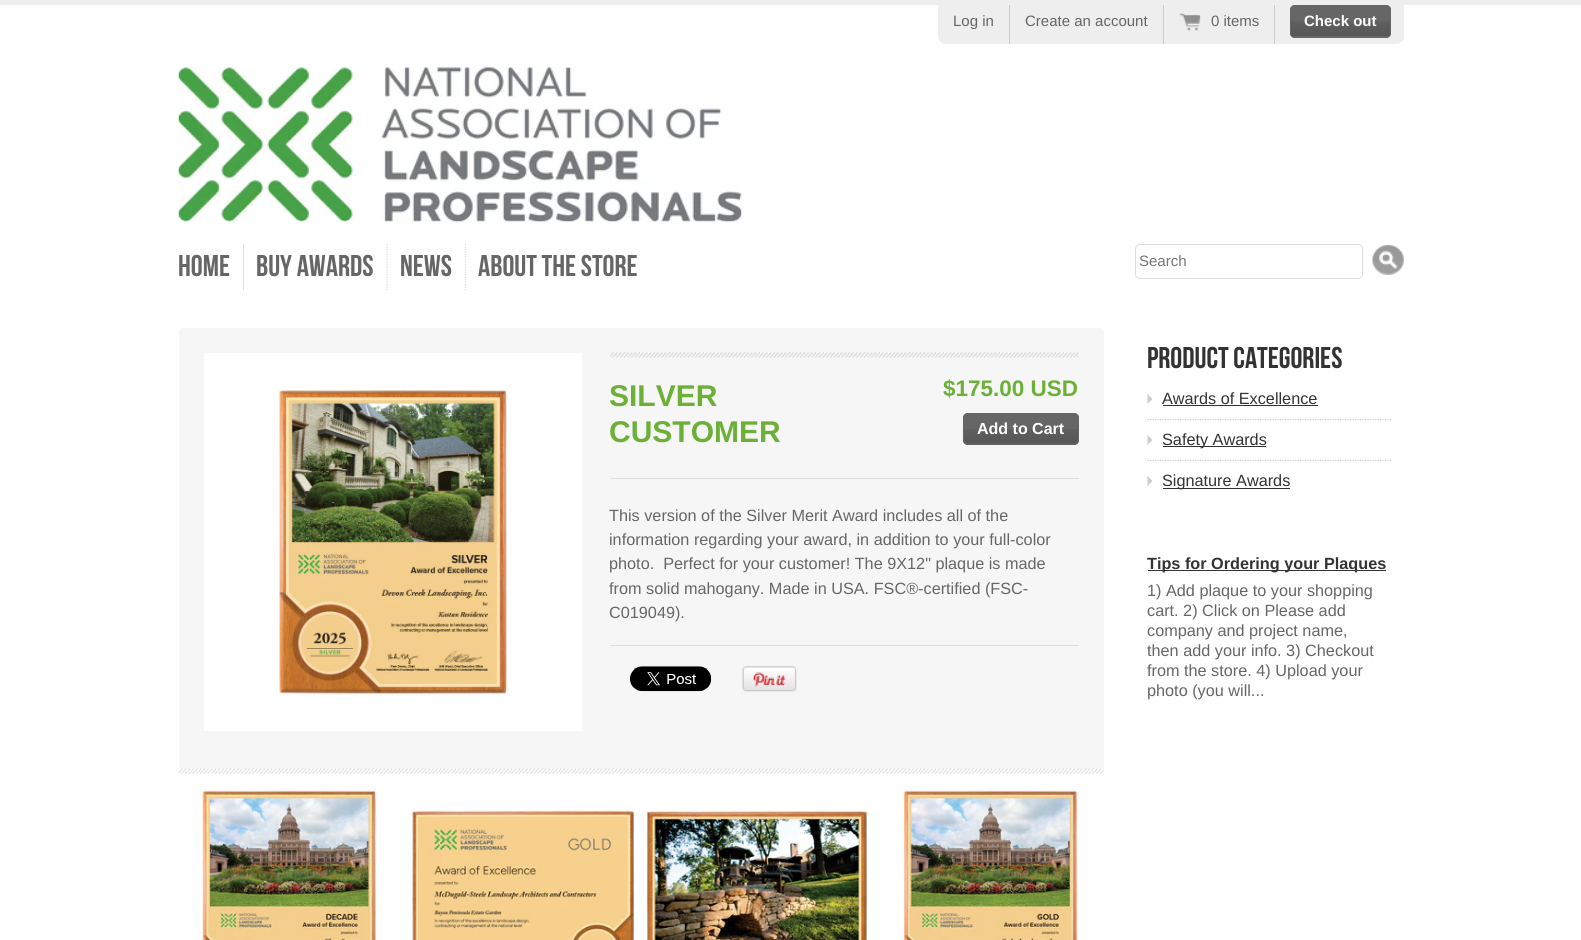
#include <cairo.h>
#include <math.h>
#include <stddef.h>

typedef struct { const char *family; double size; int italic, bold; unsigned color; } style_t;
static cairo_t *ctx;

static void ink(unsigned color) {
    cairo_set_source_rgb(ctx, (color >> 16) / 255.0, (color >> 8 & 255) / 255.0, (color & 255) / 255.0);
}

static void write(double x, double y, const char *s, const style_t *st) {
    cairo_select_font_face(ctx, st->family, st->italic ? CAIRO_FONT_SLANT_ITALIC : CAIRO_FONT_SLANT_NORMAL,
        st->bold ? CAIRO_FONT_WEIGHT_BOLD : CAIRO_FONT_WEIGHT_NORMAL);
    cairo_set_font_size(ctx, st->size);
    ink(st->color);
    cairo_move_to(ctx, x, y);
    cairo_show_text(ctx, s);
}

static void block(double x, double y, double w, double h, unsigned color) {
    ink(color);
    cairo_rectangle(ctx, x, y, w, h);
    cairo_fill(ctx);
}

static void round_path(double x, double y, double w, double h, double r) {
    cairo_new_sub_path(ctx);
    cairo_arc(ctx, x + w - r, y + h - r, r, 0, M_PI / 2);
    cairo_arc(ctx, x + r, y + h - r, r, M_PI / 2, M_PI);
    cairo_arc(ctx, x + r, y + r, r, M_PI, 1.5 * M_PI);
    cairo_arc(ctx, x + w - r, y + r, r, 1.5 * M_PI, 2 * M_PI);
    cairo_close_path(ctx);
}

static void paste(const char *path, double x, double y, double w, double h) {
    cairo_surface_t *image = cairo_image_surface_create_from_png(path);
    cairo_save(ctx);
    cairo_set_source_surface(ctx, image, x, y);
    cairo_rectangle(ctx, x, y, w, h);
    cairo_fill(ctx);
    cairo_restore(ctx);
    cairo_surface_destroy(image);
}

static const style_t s1 = {"Liberation Sans", 15, 0, 0, 0x666666};
static const style_t s2 = {"Liberation Sans", 15, 0, 1, 0xffffff};
static const style_t s3 = {"Bebas Neue", 30, 0, 0, 0x666666};
static const style_t s4 = {"Liberation Sans", 15, 0, 0, 0x757575};
static const style_t s5 = {"Liberation Sans", 30, 0, 1, 0x6db038};
static const style_t s6 = {"Liberation Sans", 22.5, 0, 1, 0x6db038};
static const style_t s7 = {"Liberation Sans", 16, 0, 1, 0xffffff};
static const style_t s8 = {"Liberation Sans", 16.25, 0, 0, 0x666666};
static const style_t s9 = {"Bebas Neue", 30, 0, 0, 0x333333};
static const style_t s10 = {"Liberation Sans", 16.25, 0, 0, 0x333333};
static const style_t s11 = {"Liberation Sans", 16.25, 0, 1, 0x333333};

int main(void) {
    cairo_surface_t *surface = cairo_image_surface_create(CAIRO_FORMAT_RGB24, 1581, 940);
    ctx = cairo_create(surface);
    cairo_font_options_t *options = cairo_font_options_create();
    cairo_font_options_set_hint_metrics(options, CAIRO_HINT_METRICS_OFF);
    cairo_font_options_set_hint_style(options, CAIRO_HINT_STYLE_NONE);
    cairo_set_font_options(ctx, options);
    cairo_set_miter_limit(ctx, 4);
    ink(0xffffff);
    cairo_paint(ctx);
    block(0, 0, 1581, 5, 0xeeeeee);
    cairo_new_path(ctx);
    cairo_move_to(ctx, 938, 5);
    cairo_line_to(ctx, 1404, 5);
    cairo_line_to(ctx, 1404, 36);
    cairo_curve_to(ctx, 1404, 40.5, 1400.5, 44, 1396, 44);
    cairo_line_to(ctx, 946, 44);
    cairo_curve_to(ctx, 941.5, 44, 938, 40.5, 938, 36);
    cairo_close_path(ctx);
    cairo_fill(ctx);
    block(1009, 5, 1, 39, 0xcccccc);
    write(953, 26, "Log in", &s1);
    block(1163, 5, 1, 39, 0xcccccc);
    write(1025, 26, "Create an account", &s1);
    block(1274, 5, 1, 39, 0xcccccc);
    paste("pic1.png", 1179, 13, 22, 18);
    write(1211, 26, "0 items", &s1);
    round_path(1290, 5, 101, 33, 5);
    cairo_fill(ctx);
    paste("pic2.png", 1290, 21, 101, 15);
    round_path(1290.5, 5.5, 100, 32, 4.5);
    cairo_set_line_width(ctx, 1);
    cairo_stroke(ctx);
    write(1304, 26, "Check out", &s2);
    paste("pic3.png", 178, 67, 564, 155);
    block(243, 244, 1, 46, 0xdddddd);
    write(178, 276, "Home", &s3);
    cairo_new_path(ctx);
    cairo_move_to(ctx, 387, 244);
    cairo_line_to(ctx, 387, 290);
    ink(0xdddddd);
    cairo_set_line_width(ctx, 1.2);
    cairo_set_dash(ctx, (double[]){1.25, 1.25}, 2, 0);
    cairo_stroke(ctx);
    write(256, 276, "Buy Awards", &s3);
    cairo_new_path(ctx);
    cairo_move_to(ctx, 465.5, 244);
    cairo_line_to(ctx, 465.5, 290);
    ink(0xdddddd);
    cairo_stroke(ctx);
    write(400, 276, "News", &s3);
    write(478, 276, "About the Store", &s3);
    round_path(1135.5, 244.5, 227, 34, 4.5);
    ink(0xdddddd);
    cairo_set_line_width(ctx, 1);
    cairo_set_dash(ctx, NULL, 0, 0);
    cairo_stroke(ctx);
    write(1139, 266, "Search", &s4);
    paste("pic4.png", 1372, 244, 32, 31);
    ink(0xf6f6f6);
    cairo_new_path(ctx);
    cairo_move_to(ctx, 184, 328);
    cairo_line_to(ctx, 1099, 328);
    cairo_curve_to(ctx, 1102, 328, 1104, 330, 1104, 333);
    cairo_line_to(ctx, 1104, 769);
    cairo_line_to(ctx, 179, 769);
    cairo_line_to(ctx, 179, 333);
    cairo_curve_to(ctx, 179, 330, 181, 328, 184, 328);
    cairo_close_path(ctx);
    cairo_fill(ctx);
    paste("pic5.png", 204, 353, 378, 378);
    paste("pic6.png", 610, 352, 469, 6);
    block(610, 478, 469, 1, 0xdddddd);
    write(609, 406, "SILVER", &s5);
    write(609, 442, "CUSTOMER", &s5);
    write(943, 396, "$175.00 USD", &s6);
    ink(0x666666);
    round_path(963, 413, 116, 32, 5);
    cairo_fill(ctx);
    paste("pic7.png", 962, 429, 117, 15);
    round_path(963.5, 413.5, 115, 31, 4.5);
    cairo_stroke(ctx);
    write(977, 434, "Add to Cart", &s7);
    write(609, 521, "This version of the Silver Merit Award includes all of the", &s8);
    write(609, 545, "information regarding your award, in addition to your full-color", &s8);
    write(609, 569, "photo.  Perfect for your customer! The 9X12\" plaque is made", &s8);
    write(609, 594, "from solid mahogany. Made in USA. FSC®-certified (FSC-", &s8);
    write(609, 618, "C019049).", &s8);
    block(610, 645, 469, 1, 0xdddddd);
    paste("pic8.png", 630, 666, 82, 26);
    paste("pic9.png", 742, 666, 55, 26);
    paste("pic10.png", 178, 768, 926, 6);
    paste("pic11.png", 202, 789, 176, 151);
    paste("pic12.png", 412, 810, 222, 130);
    paste("pic13.png", 646, 810, 222, 130);
    paste("pic14.png", 902, 789, 177, 151);
    write(1147, 368, "Product Categories", &s9);
    cairo_new_path(ctx);
    cairo_move_to(ctx, 1147.5, 419.5);
    cairo_line_to(ctx, 1391, 419.5);
    ink(0xcccccc);
    cairo_set_line_width(ctx, 1.2);
    cairo_set_dash(ctx, (double[]){1.25, 1.25}, 2, 0);
    cairo_stroke(ctx);
    cairo_new_path(ctx);
    cairo_move_to(ctx, 1147.5, 404);
    cairo_line_to(ctx, 1147.5, 394);
    cairo_line_to(ctx, 1152.5, 399);
    cairo_close_path(ctx);
    cairo_move_to(ctx, 1147.5, 445);
    cairo_line_to(ctx, 1147.5, 435);
    cairo_line_to(ctx, 1152.5, 440);
    cairo_close_path(ctx);
    cairo_fill(ctx);
    write(1162, 404, "Awards of Excellence", &s10);
    block(1163, 405, 155, 1, 0x333333);
    block(1163, 446, 103, 1, 0x333333);
    write(1162, 445, "Safety Awards", &s10);
    cairo_new_path(ctx);
    cairo_move_to(ctx, 1147.5, 460.5);
    cairo_line_to(ctx, 1391, 460.5);
    ink(0xcccccc);
    cairo_stroke(ctx);
    cairo_new_path(ctx);
    cairo_move_to(ctx, 1147.5, 486);
    cairo_line_to(ctx, 1147.5, 476);
    cairo_line_to(ctx, 1152.5, 481);
    cairo_close_path(ctx);
    cairo_fill(ctx);
    block(1163, 488, 127, 1, 0x333333);
    write(1162, 486, "Signature Awards", &s10);
    block(1148, 570, 238, 1, 0x333333);
    write(1147, 569, "Tips for Ordering your Plaques", &s11);
    write(1147, 596, "1) Add plaque to your shopping", &s8);
    write(1147, 616, "cart. 2) Click on Please add", &s8);
    write(1147, 636, "company and project name,", &s8);
    write(1147, 656, "then add your info. 3) Checkout", &s8);
    write(1147, 676, "from the store. 4) Upload your", &s8);
    write(1147, 696, "photo (you will...", &s8);
    cairo_surface_write_to_png(surface, "screenshot.png");
    cairo_font_options_destroy(options);
    cairo_destroy(ctx);
    cairo_surface_destroy(surface);
    return 0;
}
